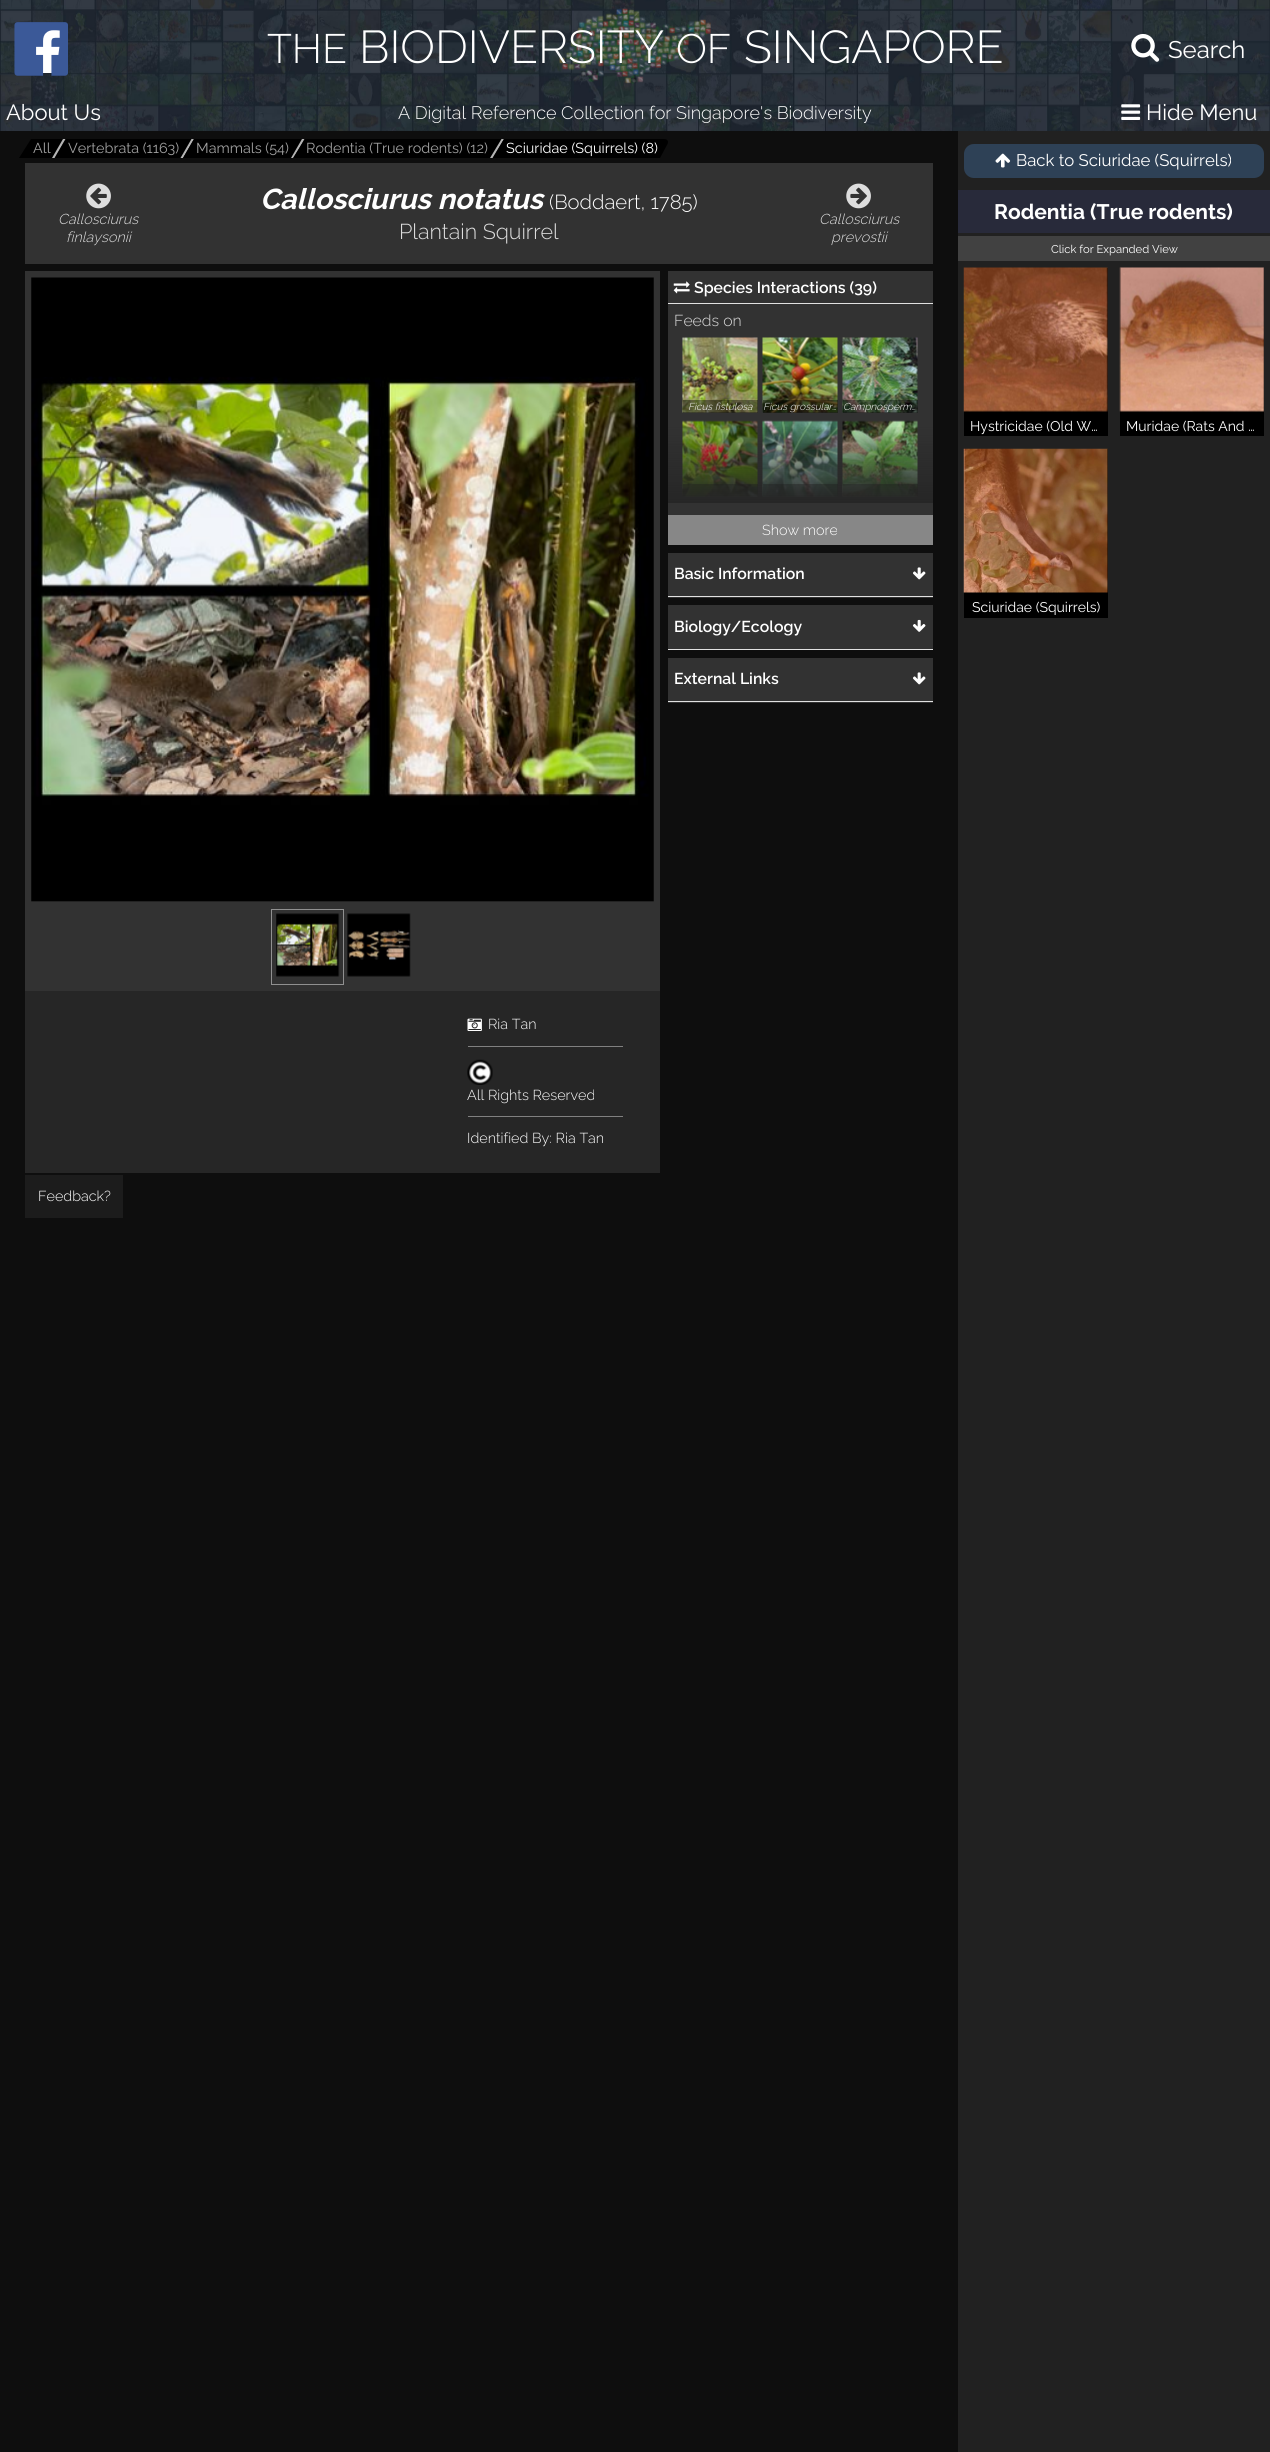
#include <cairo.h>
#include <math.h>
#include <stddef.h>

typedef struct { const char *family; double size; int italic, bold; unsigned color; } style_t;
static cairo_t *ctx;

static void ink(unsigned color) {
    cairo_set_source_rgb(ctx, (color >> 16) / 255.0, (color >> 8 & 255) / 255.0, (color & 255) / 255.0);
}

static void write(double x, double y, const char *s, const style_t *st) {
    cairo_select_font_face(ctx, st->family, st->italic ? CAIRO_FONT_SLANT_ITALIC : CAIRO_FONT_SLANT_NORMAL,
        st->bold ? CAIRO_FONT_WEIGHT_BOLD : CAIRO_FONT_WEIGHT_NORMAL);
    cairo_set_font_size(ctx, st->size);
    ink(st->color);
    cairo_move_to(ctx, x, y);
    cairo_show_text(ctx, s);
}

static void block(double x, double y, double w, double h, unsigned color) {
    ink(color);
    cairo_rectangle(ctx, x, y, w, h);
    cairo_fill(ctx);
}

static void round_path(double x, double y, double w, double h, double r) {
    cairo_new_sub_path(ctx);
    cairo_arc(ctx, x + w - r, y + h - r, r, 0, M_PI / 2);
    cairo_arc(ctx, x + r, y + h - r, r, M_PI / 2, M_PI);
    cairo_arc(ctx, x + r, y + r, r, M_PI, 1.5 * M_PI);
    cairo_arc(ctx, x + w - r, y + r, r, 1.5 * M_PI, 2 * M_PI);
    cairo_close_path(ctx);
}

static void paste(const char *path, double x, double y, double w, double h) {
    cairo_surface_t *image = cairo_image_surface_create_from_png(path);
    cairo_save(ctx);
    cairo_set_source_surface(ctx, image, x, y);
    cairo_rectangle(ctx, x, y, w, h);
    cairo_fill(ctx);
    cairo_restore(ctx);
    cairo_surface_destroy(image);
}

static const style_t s1 = {"Raleway Light", 41, 0, 0, 0xffffff};
static const style_t s2 = {"Raleway Light", 46, 0, 0, 0xffffff};
static const style_t s3 = {"Raleway", 24, 0, 0, 0xffffff};
static const style_t s4 = {"Raleway", 22, 0, 0, 0xffffff};
static const style_t s5 = {"Raleway Light", 18, 0, 0, 0xffffff};
static const style_t s6 = {"Raleway", 14.4, 0, 0, 0xa0a0a0};
static const style_t s7 = {"Raleway", 14.4, 0, 0, 0xffffff};
static const style_t s8 = {"Raleway Light", 14.4, 1, 0, 0xdddddd};
static const style_t s9 = {"Raleway", 28.75, 1, 1, 0xffffff};
static const style_t s10 = {"Raleway Light", 20.25, 0, 0, 0xffffff};
static const style_t s11 = {"Raleway Light", 21.5, 0, 0, 0xdddddd};
static const style_t s12 = {"Raleway SemiBold", 15.8, 0, 0, 0xffffff};
static const style_t s13 = {"Raleway Light", 15.8, 0, 0, 0xdddddd};
static const style_t s14 = {"Raleway Light", 10, 1, 0, 0xffffff};
static const style_t s15 = {"Raleway Light", 14.4, 0, 0, 0xffffff};
static const style_t s16 = {"Raleway", 16.75, 0, 0, 0xffffff};
static const style_t s17 = {"Raleway", 21, 0, 1, 0xffffff};
static const style_t s18 = {"Raleway", 11.25, 0, 0, 0xffffff};
static const style_t s19 = {"Raleway", 14, 0, 0, 0xffffff};

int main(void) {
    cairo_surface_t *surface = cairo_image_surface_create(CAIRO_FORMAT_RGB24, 1270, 2452);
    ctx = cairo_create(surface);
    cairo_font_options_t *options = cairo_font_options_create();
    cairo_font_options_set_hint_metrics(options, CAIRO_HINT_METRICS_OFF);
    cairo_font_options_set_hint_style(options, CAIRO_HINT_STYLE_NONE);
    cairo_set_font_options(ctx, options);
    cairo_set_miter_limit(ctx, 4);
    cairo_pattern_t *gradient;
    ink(0x0e0e0e);
    cairo_paint(ctx);
    paste("pic1.png", 0, 0, 1270, 131);
    block(36, 30, 24, 43, 0xffffff);
    paste("pic2.png", 14, 22, 54, 54);
    paste("pic3.png", 559, 8, 152, 76);
    write(267, 63, "THE", &s1);
    write(359, 63, "BIODIVERSITY", &s2);
    write(676, 63, "OF", &s1);
    write(744, 63, "SINGAPORE", &s2);
    paste("pic4.png", 1131, 33, 29, 29);
    write(1168, 58, "Search", &s3);
    write(6, 120, "About Us", &s4);
    write(398, 119, "A Digital Reference Collection for Singapore's Biodiversity", &s5);
    paste("pic5.png", 1121, 104, 20, 16);
    write(1146, 120, "Hide Menu", &s4);
    ink(0x000000);
    cairo_new_path(ctx);
    cairo_move_to(ctx, 31, 139);
    cairo_line_to(ctx, 66, 139);
    cairo_line_to(ctx, 55, 158);
    cairo_line_to(ctx, 19, 158);
    cairo_close_path(ctx);
    cairo_fill(ctx);
    ink(0xb5b5b5);
    cairo_new_path(ctx);
    cairo_move_to(ctx, 63, 139);
    cairo_line_to(ctx, 65.5, 139);
    cairo_line_to(ctx, 54.5, 158);
    cairo_line_to(ctx, 52, 158);
    cairo_close_path(ctx);
    cairo_fill(ctx);
    write(33, 153, "All", &s6);
    ink(0x000000);
    cairo_new_path(ctx);
    cairo_move_to(ctx, 66, 139);
    cairo_line_to(ctx, 194, 139);
    cairo_line_to(ctx, 183, 158);
    cairo_line_to(ctx, 55, 158);
    cairo_close_path(ctx);
    cairo_fill(ctx);
    ink(0xb5b5b5);
    cairo_new_path(ctx);
    cairo_move_to(ctx, 191.5, 139);
    cairo_line_to(ctx, 194, 139);
    cairo_line_to(ctx, 183, 158);
    cairo_line_to(ctx, 180.5, 158);
    cairo_close_path(ctx);
    cairo_fill(ctx);
    write(68, 153, "Vertebrata (1163)", &s6);
    ink(0x000000);
    cairo_new_path(ctx);
    cairo_move_to(ctx, 194, 139);
    cairo_line_to(ctx, 305, 139);
    cairo_line_to(ctx, 293, 158);
    cairo_line_to(ctx, 183, 158);
    cairo_close_path(ctx);
    cairo_fill(ctx);
    ink(0xb5b5b5);
    cairo_new_path(ctx);
    cairo_move_to(ctx, 302, 139);
    cairo_line_to(ctx, 304.5, 139);
    cairo_line_to(ctx, 293.5, 158);
    cairo_line_to(ctx, 291, 158);
    cairo_close_path(ctx);
    cairo_fill(ctx);
    write(196, 153, "Mammals (54)", &s6);
    ink(0x000000);
    cairo_new_path(ctx);
    cairo_move_to(ctx, 305, 139);
    cairo_line_to(ctx, 504, 139);
    cairo_line_to(ctx, 493, 158);
    cairo_line_to(ctx, 293, 158);
    cairo_close_path(ctx);
    cairo_fill(ctx);
    ink(0xb5b5b5);
    cairo_new_path(ctx);
    cairo_move_to(ctx, 501.5, 139);
    cairo_line_to(ctx, 504, 139);
    cairo_line_to(ctx, 492.5, 158);
    cairo_line_to(ctx, 490, 158);
    cairo_close_path(ctx);
    cairo_fill(ctx);
    write(306, 153, "Rodentia (True rodents) (12)", &s6);
    ink(0x000000);
    cairo_new_path(ctx);
    cairo_move_to(ctx, 504, 139);
    cairo_line_to(ctx, 664, 139);
    cairo_curve_to(ctx, 668, 139, 669, 142, 667, 145);
    cairo_line_to(ctx, 660, 158);
    cairo_line_to(ctx, 493, 158);
    cairo_close_path(ctx);
    cairo_fill(ctx);
    write(506, 153, "Sciuridae (Squirrels) (8)", &s7);
    block(25, 163, 908, 101, 0x323232);
    paste("pic6.png", 86, 183, 25, 26);
    write(58, 224, "Callosciurus", &s8);
    write(66, 242, "finlaysonii", &s8);
    write(260, 209, "Callosciurus notatus", &s9);
    write(549, 209, "(Boddaert, 1785)", &s10);
    write(399, 239, "Plantain Squirrel", &s11);
    paste("pic7.png", 846, 183, 25, 26);
    write(819, 224, "Callosciurus", &s8);
    write(831, 242, "prevostii", &s8);
    block(668, 271, 265, 244, 0x323232);
    block(668, 303, 265, 1, 0xe1e1e1);
    paste("pic8.png", 673, 281, 17, 13);
    write(694, 293, "Species Interactions (39)", &s12);
    write(674, 326, "Feeds on", &s13);
    paste("pic9.png", 682, 337, 76, 76);
    cairo_set_source_rgba(ctx, 0, 0, 0, 0.4);
    cairo_rectangle(ctx, 683, 400, 75, 13);
    cairo_fill(ctx);
    write(688, 410, "Ficus fistulosa", &s14);
    paste("pic10.png", 762, 337, 76, 76);
    cairo_set_source_rgba(ctx, 0, 0, 0, 0.4);
    cairo_rectangle(ctx, 763, 400, 75, 13);
    cairo_fill(ctx);
    write(763, 410, "Ficus grossular…", &s14);
    paste("pic11.png", 842, 337, 76, 76);
    cairo_set_source_rgba(ctx, 0, 0, 0, 0.4);
    cairo_rectangle(ctx, 843, 400, 75, 13);
    cairo_fill(ctx);
    write(843, 410, "Campnosperm…", &s14);
    paste("pic12.png", 682, 420, 76, 77);
    cairo_set_source_rgba(ctx, 0, 0, 0, 0.4);
    cairo_rectangle(ctx, 683, 484, 75, 12);
    cairo_fill(ctx);
    paste("pic13.png", 762, 420, 76, 77);
    cairo_rectangle(ctx, 763, 484, 75, 12);
    cairo_fill(ctx);
    paste("pic14.png", 842, 420, 76, 77);
    cairo_rectangle(ctx, 843, 484, 75, 12);
    cairo_fill(ctx);
    gradient = cairo_pattern_create_linear(800, 425, 800, 503);
    cairo_pattern_add_color_stop_rgba(gradient, 0, 0.149, 0.149, 0.149, 0);
    cairo_pattern_add_color_stop_rgba(gradient, 0.5, 0.149, 0.149, 0.149, 0.5);
    cairo_pattern_add_color_stop_rgba(gradient, 1, 0.149, 0.149, 0.149, 1);
    cairo_set_source(ctx, gradient);
    cairo_pattern_destroy(gradient);
    cairo_rectangle(ctx, 668, 427, 265, 76);
    cairo_fill(ctx);
    block(668, 515, 265, 30, 0x878787);
    write(762, 535, "Show more", &s15);
    block(668, 553, 265, 45, 0x323232);
    block(668, 596, 265, 1, 0xe1e1e1);
    write(674, 579, "Basic Information", &s12);
    paste("pic15.png", 913, 567, 13, 13);
    block(668, 605, 265, 44, 0x323232);
    block(668, 649, 265, 1, 0xe1e1e1);
    write(674, 632, "Biology/Ecology", &s12);
    paste("pic16.png", 912, 619, 14, 13);
    block(668, 658, 265, 45, 0x323232);
    block(668, 701, 265, 1, 0xe1e1e1);
    write(674, 684, "External Links", &s12);
    paste("pic15.png", 913, 672, 13, 13);
    block(25, 271, 635, 720, 0x323232);
    paste("pic17.png", 31, 277, 623, 625);
    cairo_rectangle(ctx, 271.5, 909.5, 72, 75);
    ink(0x909090);
    cairo_set_line_width(ctx, 1);
    cairo_stroke(ctx);
    paste("pic18.png", 276, 913, 64, 64);
    paste("pic19.png", 347, 913, 64, 64);
    block(25, 991, 635, 182, 0x262626);
    block(468, 1046, 155, 1, 0x808080);
    paste("pic20.png", 467, 1018, 15, 13);
    write(488, 1029, "Ria Tan", &s15);
    block(468, 1116, 155, 1, 0x808080);
    paste("pic21.png", 467, 1059, 26, 26);
    write(467, 1100, "All Rights Reserved", &s15);
    write(467, 1143, "Identified By: Ria Tan", &s15);
    block(25, 1175, 98, 43, 0x1c1c1c);
    write(38, 1201, "Feedback?", &s15);
    block(958, 131, 312, 2321, 0x212121);
    ink(0x2e4156);
    round_path(964, 144, 300, 34, 10);
    cairo_fill(ctx);
    paste("pic22.png", 995, 153, 16, 15);
    write(1016, 166, "Back to Sciuridae (Squirrels)", &s16);
    block(958, 190, 312, 43, 0x282a3a);
    write(994, 219, "Rodentia (True rodents)", &s17);
    block(958, 236, 312, 25, 0x414141);
    write(1051, 253, "Click for Expanded View", &s18);
    block(964, 268, 144, 168, 0x000000);
    paste("pic23.png", 963, 267, 145, 145);
    write(970, 431, "Hystricidae (Old W…", &s19);
    block(1120, 268, 144, 168, 0x000000);
    paste("pic24.png", 1119, 267, 145, 145);
    write(1126, 431, "Muridae (Rats And …", &s19);
    block(964, 449, 144, 169, 0x000000);
    paste("pic25.png", 963, 448, 145, 145);
    write(972, 612, "Sciuridae (Squirrels)", &s19);
    cairo_surface_write_to_png(surface, "screenshot.png");
    cairo_font_options_destroy(options);
    cairo_destroy(ctx);
    cairo_surface_destroy(surface);
    return 0;
}
